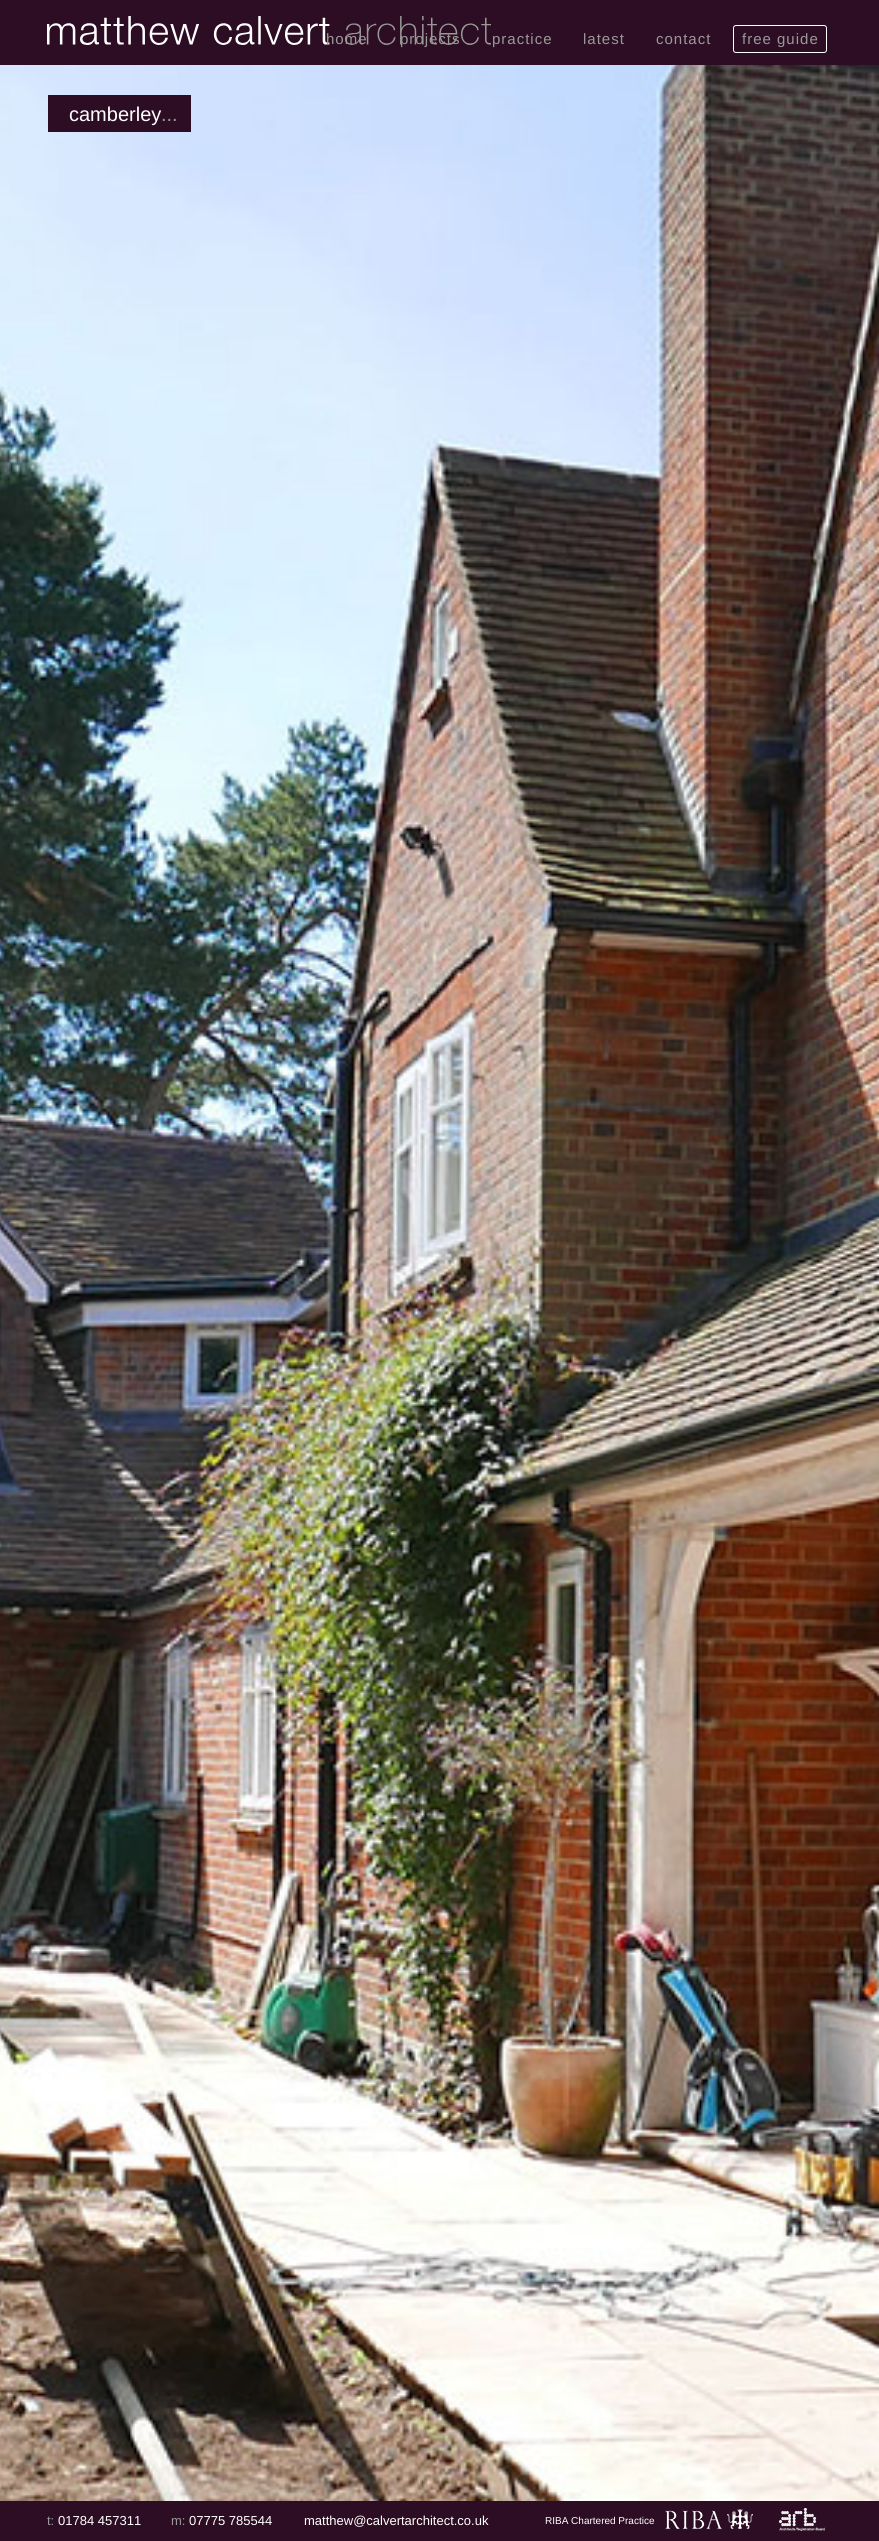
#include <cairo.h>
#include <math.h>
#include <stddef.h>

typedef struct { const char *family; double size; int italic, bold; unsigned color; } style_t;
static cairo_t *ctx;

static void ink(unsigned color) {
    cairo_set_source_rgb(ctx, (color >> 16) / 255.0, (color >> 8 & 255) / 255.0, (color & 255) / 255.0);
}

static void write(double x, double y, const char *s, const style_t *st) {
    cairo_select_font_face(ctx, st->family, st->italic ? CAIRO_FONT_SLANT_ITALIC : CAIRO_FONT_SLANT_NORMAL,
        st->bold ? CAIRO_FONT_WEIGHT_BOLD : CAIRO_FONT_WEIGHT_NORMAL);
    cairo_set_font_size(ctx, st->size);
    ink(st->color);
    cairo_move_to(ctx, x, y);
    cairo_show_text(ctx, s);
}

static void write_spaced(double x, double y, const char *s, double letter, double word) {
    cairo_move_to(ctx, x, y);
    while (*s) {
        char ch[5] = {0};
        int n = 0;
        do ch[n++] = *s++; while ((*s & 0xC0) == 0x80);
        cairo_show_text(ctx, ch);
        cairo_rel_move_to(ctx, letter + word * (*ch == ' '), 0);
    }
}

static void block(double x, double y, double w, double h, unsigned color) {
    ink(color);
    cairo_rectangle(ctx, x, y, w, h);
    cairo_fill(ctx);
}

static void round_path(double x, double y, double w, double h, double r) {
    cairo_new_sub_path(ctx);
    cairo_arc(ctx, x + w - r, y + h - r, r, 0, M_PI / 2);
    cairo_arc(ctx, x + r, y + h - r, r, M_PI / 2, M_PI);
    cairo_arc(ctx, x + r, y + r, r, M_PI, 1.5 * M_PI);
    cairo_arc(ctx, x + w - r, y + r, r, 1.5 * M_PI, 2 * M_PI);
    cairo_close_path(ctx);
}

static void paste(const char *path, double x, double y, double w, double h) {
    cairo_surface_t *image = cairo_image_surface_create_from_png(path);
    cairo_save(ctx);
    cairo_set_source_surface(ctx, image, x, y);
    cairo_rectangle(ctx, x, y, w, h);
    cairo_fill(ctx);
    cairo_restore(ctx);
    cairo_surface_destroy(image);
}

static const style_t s1 = {"Liberation Sans", 20, 0, 0, 0xffffff};
static const style_t s2 = {"Liberation Sans", 20, 0, 0, 0x999999};
static const style_t s3 = {"Liberation Sans", 13, 0, 0, 0x999999};
static const style_t s4 = {"Liberation Sans", 13, 0, 0, 0xffffff};
static const style_t s5 = {"Liberation Sans", 10, 0, 0, 0xffffff};

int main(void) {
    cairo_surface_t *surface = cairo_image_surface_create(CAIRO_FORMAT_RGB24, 879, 2541);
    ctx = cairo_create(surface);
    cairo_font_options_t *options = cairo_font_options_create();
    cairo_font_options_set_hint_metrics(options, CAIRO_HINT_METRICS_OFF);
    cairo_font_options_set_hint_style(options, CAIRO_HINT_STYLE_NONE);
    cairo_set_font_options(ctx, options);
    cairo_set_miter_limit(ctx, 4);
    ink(0xffffff);
    cairo_paint(ctx);
    block(0, 0, 879, 65, 0x2d0d23);
    paste("pic1.png", 47, 16, 444, 29);
    round_path(733.5, 25.5, 93, 27, 2.5);
    ink(0xffffff);
    cairo_set_line_width(ctx, 1);
    cairo_stroke(ctx);
    cairo_select_font_face(ctx, "Liberation Sans", CAIRO_FONT_SLANT_NORMAL, CAIRO_FONT_WEIGHT_NORMAL);
    cairo_set_font_size(ctx, 15);
    ink(0x999999);
    write_spaced(326, 44, "home", 1, 0);
    write_spaced(400, 44, "projects", 1, 0);
    write_spaced(492, 44, "practice", 1, 0);
    write_spaced(583, 44, "latest", 1, 0);
    write_spaced(656, 44, "contact", 1, 0);
    write_spaced(742, 44, "free guide", 1, 0);
    paste("pic2.png", 0, 65, 879, 2436);
    block(48, 95, 143, 37, 0x2d0d23);
    write(69, 121, "camberley", &s1);
    write(161, 121, "...", &s2);
    block(0, 2501, 879, 40, 0x2d0d23);
    write(47, 2525, "t:", &s3);
    write(58, 2525, "01784 457311", &s4);
    write(171, 2525, "m:", &s3);
    write(189, 2525, "07775 785544", &s4);
    write(304, 2525, "matthew@calvertarchitect.co.uk", &s4);
    write(545, 2524, "RIBA Chartered Practice", &s5);
    paste("pic3.png", 665, 2509, 88, 21);
    paste("pic4.png", 779, 2508, 46, 23);
    cairo_surface_write_to_png(surface, "screenshot.png");
    cairo_font_options_destroy(options);
    cairo_destroy(ctx);
    cairo_surface_destroy(surface);
    return 0;
}
